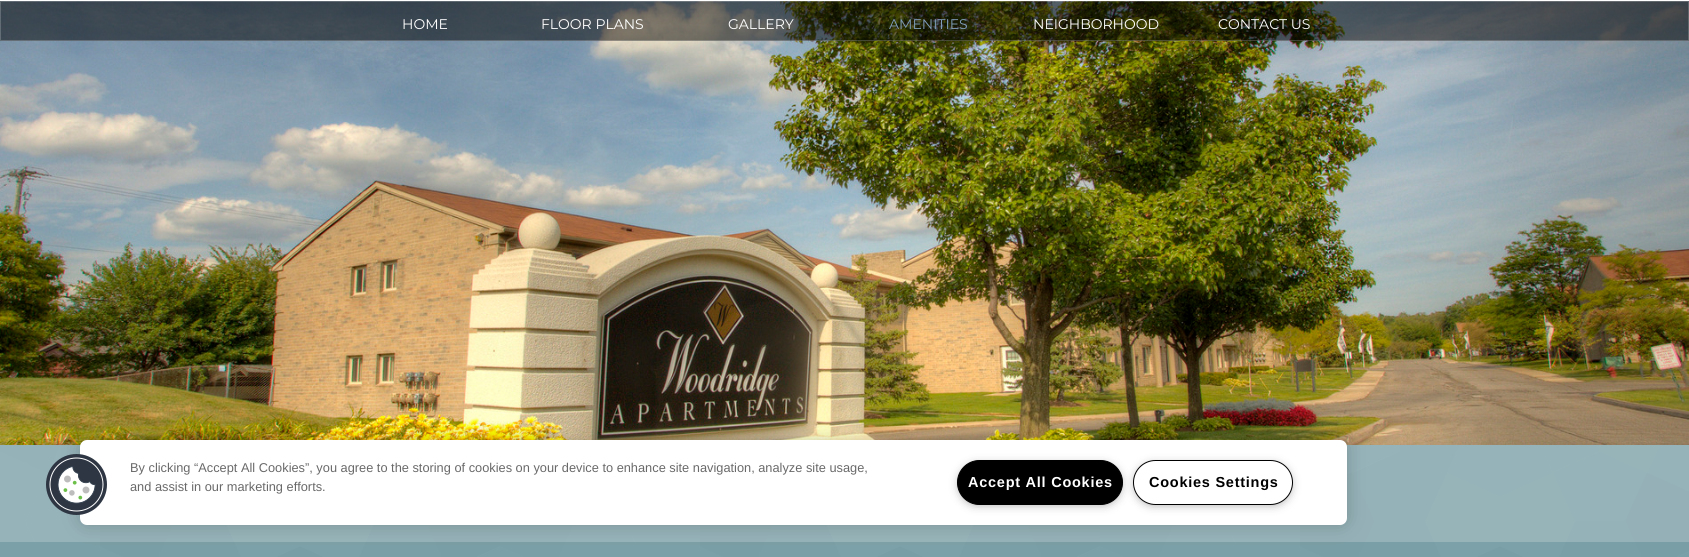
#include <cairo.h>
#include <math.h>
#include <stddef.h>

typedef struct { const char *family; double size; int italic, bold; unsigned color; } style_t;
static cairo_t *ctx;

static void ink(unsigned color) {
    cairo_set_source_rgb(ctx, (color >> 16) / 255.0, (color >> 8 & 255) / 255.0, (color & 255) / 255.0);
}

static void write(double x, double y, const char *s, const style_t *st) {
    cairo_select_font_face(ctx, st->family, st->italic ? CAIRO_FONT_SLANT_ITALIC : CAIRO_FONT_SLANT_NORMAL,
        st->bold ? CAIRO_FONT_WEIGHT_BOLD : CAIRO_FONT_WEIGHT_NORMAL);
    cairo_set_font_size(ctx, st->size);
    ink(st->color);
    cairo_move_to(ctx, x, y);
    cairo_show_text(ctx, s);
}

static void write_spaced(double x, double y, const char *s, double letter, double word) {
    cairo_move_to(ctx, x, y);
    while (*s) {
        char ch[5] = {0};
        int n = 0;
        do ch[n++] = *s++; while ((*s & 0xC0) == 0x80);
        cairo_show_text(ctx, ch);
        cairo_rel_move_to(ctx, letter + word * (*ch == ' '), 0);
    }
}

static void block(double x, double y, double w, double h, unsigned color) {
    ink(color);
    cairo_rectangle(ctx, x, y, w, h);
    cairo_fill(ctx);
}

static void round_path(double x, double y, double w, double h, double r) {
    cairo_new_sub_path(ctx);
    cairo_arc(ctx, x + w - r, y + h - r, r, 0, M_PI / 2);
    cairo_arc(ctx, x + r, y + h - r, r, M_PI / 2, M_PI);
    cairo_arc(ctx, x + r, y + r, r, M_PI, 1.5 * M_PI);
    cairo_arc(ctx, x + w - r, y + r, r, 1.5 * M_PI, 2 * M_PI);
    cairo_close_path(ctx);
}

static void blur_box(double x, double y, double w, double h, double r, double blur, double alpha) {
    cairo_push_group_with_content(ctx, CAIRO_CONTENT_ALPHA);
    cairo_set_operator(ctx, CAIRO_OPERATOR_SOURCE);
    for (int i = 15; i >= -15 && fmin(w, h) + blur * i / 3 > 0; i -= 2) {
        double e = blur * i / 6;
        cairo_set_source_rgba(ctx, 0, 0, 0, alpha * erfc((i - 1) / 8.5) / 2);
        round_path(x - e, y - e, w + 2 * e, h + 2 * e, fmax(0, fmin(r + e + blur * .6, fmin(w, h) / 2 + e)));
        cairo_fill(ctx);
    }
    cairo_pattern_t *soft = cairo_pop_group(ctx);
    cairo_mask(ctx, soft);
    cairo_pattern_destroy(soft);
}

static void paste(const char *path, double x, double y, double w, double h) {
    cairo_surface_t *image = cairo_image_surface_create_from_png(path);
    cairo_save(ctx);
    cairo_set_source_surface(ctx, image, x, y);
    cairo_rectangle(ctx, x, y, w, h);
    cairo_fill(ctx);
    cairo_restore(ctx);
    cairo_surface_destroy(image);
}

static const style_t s1 = {"Montserrat", 14, 0, 0, 0xffffff};
static const style_t s2 = {"Montserrat", 14, 0, 0, 0x809ebb};
static const style_t s3 = {"Liberation Sans", 12.8, 0, 0, 0x696969};

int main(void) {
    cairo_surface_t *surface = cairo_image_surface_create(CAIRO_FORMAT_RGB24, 1689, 557);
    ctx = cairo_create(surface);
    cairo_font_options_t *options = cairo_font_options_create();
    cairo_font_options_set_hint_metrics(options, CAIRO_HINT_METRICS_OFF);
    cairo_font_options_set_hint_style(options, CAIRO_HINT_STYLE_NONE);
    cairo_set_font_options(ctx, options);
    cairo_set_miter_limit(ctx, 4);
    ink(0x6d969e);
    cairo_paint(ctx);
    paste("pic1.png", 0, 445, 1689, 112);
    paste("pic2.png", 0, 1, 1689, 444);
    ink(0x000000);
    blur_box(2, -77, 1685, 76, 0, 30, 0.1);
    block(0, 0, 1689, 1, 0xffffff);
    cairo_set_source_rgba(ctx, 0, 0, 0, 0.5);
    cairo_rectangle(ctx, 0, 1, 1689, 40);
    cairo_fill(ctx);
    cairo_rectangle(ctx, 0.5, 1.5, 1688, 39);
    cairo_set_source_rgba(ctx, 1, 1, 1, 0.2);
    cairo_set_line_width(ctx, 1);
    cairo_stroke(ctx);
    write(402, 29, "HOME", &s1);
    write(541, 29, "FLOOR PLANS", &s1);
    write(728, 29, "GALLERY", &s1);
    write(889, 29, "AMENITIES", &s2);
    write(1033, 29, "NEIGHBORHOOD", &s1);
    write(1218, 29, "CONTACT US", &s1);
    cairo_set_source_rgba(ctx, 1, 1, 1, 0.2);
    cairo_rectangle(ctx, 0, 445, 1689, 97);
    cairo_fill(ctx);
    ink(0x000000);
    blur_box(80, 440, 1267, 85, 7, 9, 0.2);
    ink(0xffffff);
    round_path(80, 440, 1267, 85, 7);
    cairo_fill(ctx);
    paste("pic3.png", 46, 454, 61, 61);
    write(130, 472, "By clicking “Accept All Cookies”, you agree to the storing of cookies on your device to enhance site navigation, analyze site usage,", &s3);
    write(130, 491, "and assist in our marketing efforts.", &s3);
    ink(0x999999);
    blur_box(960, 465, 160, 39, 19.5, 5, 1);
    ink(0x000000);
    round_path(957.5, 460.5, 165, 44, 22);
    cairo_fill_preserve(ctx);
    cairo_stroke(ctx);
    cairo_select_font_face(ctx, "Liberation Sans", CAIRO_FONT_SLANT_NORMAL, CAIRO_FONT_WEIGHT_BOLD);
    cairo_set_font_size(ctx, 14.5);
    ink(0xffffff);
    write_spaced(968, 487, "Accept All Cookies", 0.75, 0);
    ink(0x999999);
    blur_box(1136, 465, 154, 39, 19.5, 5, 1);
    ink(0xffffff);
    round_path(1133.5, 460.5, 159, 44, 22);
    cairo_fill_preserve(ctx);
    ink(0x000000);
    cairo_stroke(ctx);
    write_spaced(1149, 487, "Cookies Settings", 0.75, 0);
    cairo_surface_write_to_png(surface, "screenshot.png");
    cairo_font_options_destroy(options);
    cairo_destroy(ctx);
    cairo_surface_destroy(surface);
    return 0;
}
